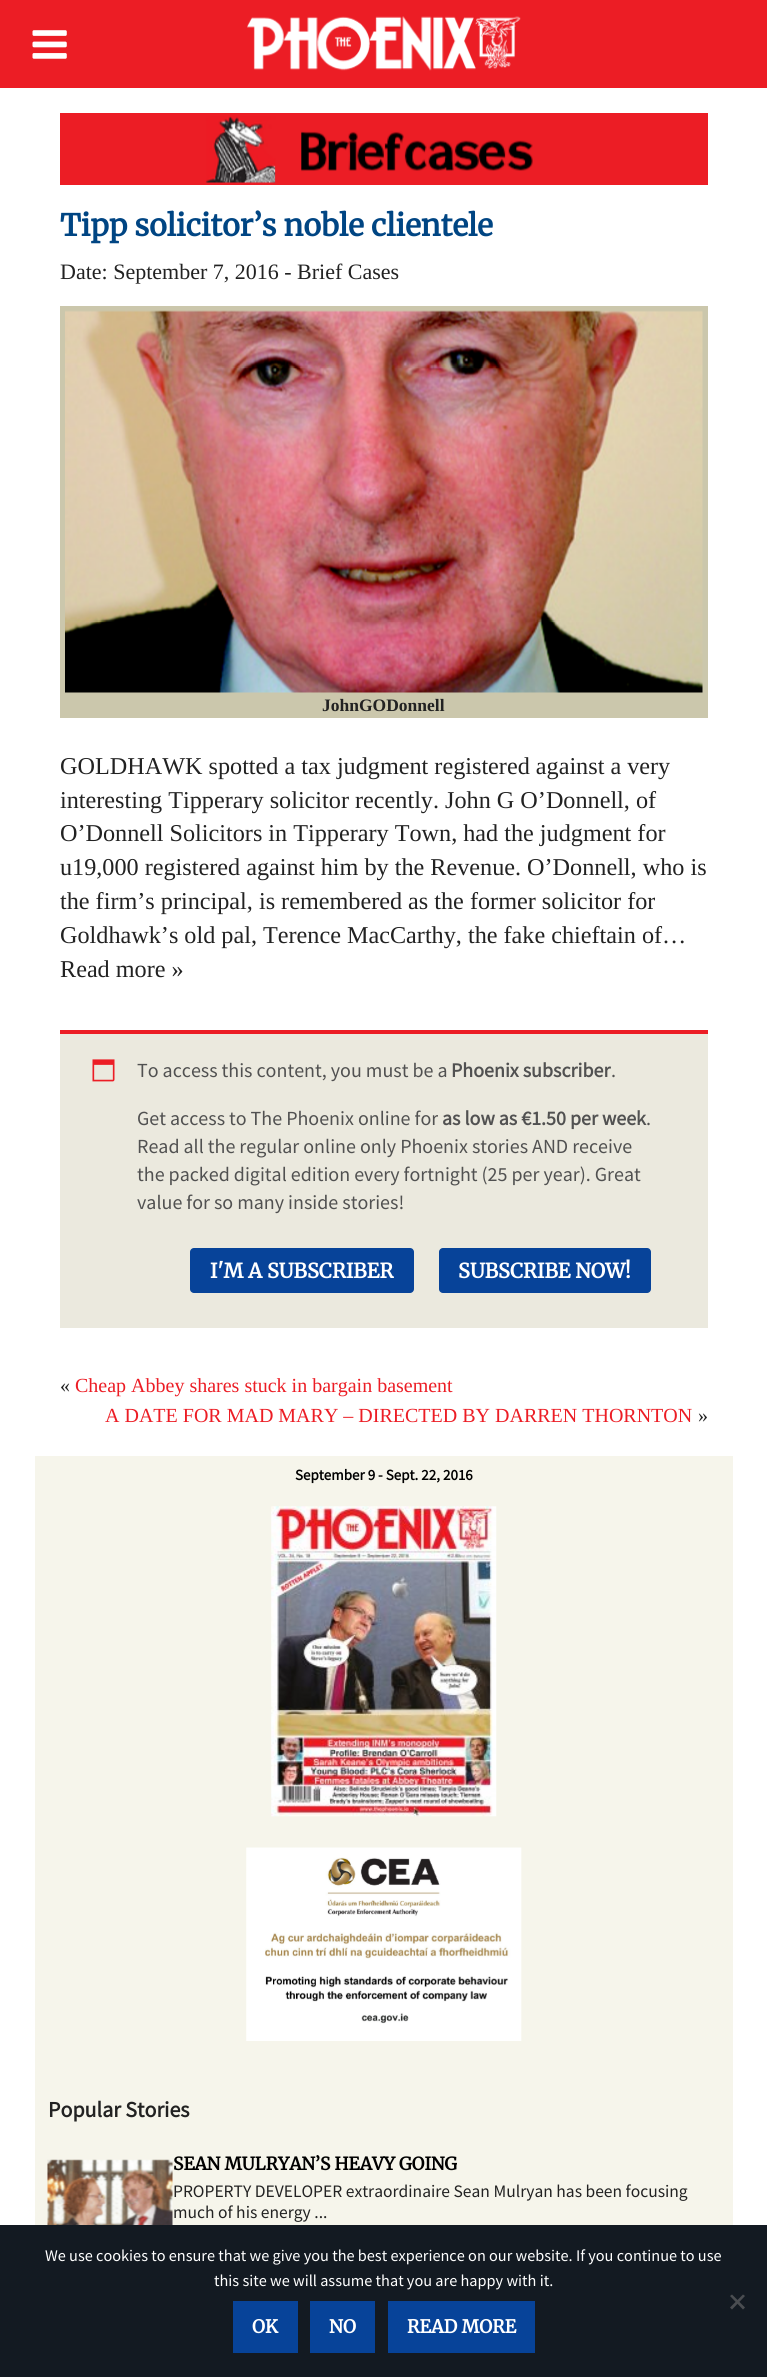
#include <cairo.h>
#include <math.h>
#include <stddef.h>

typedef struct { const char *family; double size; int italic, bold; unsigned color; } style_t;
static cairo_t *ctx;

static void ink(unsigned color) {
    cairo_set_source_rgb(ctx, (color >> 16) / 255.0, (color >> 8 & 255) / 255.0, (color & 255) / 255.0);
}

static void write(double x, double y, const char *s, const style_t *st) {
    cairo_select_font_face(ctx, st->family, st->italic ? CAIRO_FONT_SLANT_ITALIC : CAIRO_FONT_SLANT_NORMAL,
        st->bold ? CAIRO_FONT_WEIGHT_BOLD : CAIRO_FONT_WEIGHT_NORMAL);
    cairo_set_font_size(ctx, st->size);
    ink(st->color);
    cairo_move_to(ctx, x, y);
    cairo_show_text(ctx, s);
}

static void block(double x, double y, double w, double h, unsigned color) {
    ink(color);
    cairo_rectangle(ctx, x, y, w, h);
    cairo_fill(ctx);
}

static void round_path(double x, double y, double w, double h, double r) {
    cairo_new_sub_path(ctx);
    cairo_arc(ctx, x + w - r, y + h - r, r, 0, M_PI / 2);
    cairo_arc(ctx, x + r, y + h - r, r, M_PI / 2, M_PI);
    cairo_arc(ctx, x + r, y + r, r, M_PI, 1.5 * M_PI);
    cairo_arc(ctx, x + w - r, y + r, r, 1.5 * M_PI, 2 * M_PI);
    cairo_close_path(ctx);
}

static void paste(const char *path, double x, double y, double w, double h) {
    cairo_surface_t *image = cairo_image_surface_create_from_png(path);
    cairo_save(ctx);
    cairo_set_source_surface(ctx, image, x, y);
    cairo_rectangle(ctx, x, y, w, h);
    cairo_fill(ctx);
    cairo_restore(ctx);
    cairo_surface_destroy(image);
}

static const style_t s1 = {"Merriweather", 30, 0, 1, 0x004583};
static const style_t s2 = {"Liberation Serif", 22, 0, 0, 0x222222};
static const style_t s3 = {"Liberation Serif", 17.5, 0, 1, 0x222222};
static const style_t s4 = {"Liberation Serif", 24.2, 0, 0, 0x222222};
static const style_t s5 = {"Source Sans Pro", 20, 0, 0, 0x515151};
static const style_t s6 = {"Source Sans Pro", 20, 0, 1, 0x515151};
static const style_t s7 = {"Merriweather", 20, 0, 1, 0xffffff};
static const style_t s8 = {"Liberation Serif", 20, 0, 0, 0x222222};
static const style_t s9 = {"Liberation Serif", 20, 0, 0, 0xec1d25};
static const style_t s10 = {"Source Sans Pro", 15, 0, 1, 0x000000};
static const style_t s11 = {"Source Sans Pro", 22, 0, 1, 0x222222};
static const style_t s12 = {"Merriweather", 17.5, 0, 1, 0x000000};
static const style_t s13 = {"Source Sans Pro", 17.5, 0, 0, 0x222222};
static const style_t s14 = {"Source Sans Pro", 16.25, 0, 0, 0xffffff};
static const style_t s15 = {"Merriweather", 18, 0, 1, 0xffffff};

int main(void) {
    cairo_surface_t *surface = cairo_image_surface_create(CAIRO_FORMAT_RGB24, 767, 2377);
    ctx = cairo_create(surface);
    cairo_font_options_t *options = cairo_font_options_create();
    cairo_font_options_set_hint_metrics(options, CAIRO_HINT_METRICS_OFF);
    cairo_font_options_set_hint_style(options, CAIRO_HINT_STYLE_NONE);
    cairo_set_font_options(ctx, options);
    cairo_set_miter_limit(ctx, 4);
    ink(0xec1d25);
    cairo_paint(ctx);
    paste("pic1.png", 32, 30, 35, 29);
    paste("pic2.png", 247, 16, 274, 55);
    block(0, 88, 767, 2137, 0xffffff);
    block(60, 113, 648, 72, 0xec1d25);
    paste("pic3.png", 205, 116, 328, 67);
    write(60, 236, "Tipp solicitor’s noble clientele", &s1);
    write(60, 279, "Date: September 7, 2016 - Brief Cases", &s2);
    block(60, 306, 648, 412, 0xcbc7ac);
    paste("pic4.png", 65, 310, 638, 383);
    write(322, 711, "JohnGODonnell", &s3);
    write(60, 774, "GOLDHAWK spotted a tax judgment registered against a very", &s4);
    write(60, 808, "interesting Tipperary solicitor recently. John G O’Donnell, of", &s4);
    write(60, 841, "O’Donnell Solicitors in Tipperary Town, had the judgment for", &s4);
    write(60, 875, "u19,000 registered against him by the Revenue. O’Donnell, who is", &s4);
    write(60, 909, "the firm’s principal, is remembered as the former solicitor for", &s4);
    write(60, 943, "Goldhawk’s old pal, Terence MacCarthy, the fake chieftain of…", &s4);
    write(60, 977, "Read more »", &s4);
    block(60, 1034, 648, 294, 0xebe9de);
    block(60, 1030, 648, 4, 0xec1d25);
    paste("pic5.png", 92, 1059, 23, 23);
    write(137, 1077, "To access this content, you must be a", &s5);
    write(451, 1077, "Phoenix subscriber", &s6);
    write(611, 1077, ".", &s5);
    write(137, 1125, "Get access to The Phoenix online for", &s5);
    write(442, 1125, "as low as €1.50 per week", &s6);
    write(646, 1125, ".", &s5);
    write(137, 1153, "Read all the regular online only Phoenix stories AND receive", &s5);
    write(137, 1181, "the packed digital edition every fortnight (25 per year). Great", &s5);
    write(137, 1209, "value for so many inside stories!", &s5);
    ink(0x074399);
    round_path(190, 1248, 224, 45, 4);
    cairo_fill(ctx);
    write(210, 1278, "I'M A SUBSCRIBER", &s7);
    ink(0x074399);
    round_path(439, 1248, 212, 45, 4);
    cairo_fill(ctx);
    write(458, 1278, "SUBSCRIBE NOW!", &s7);
    write(60, 1392, "«", &s8);
    write(75, 1392, "Cheap Abbey shares stuck in bargain basement", &s9);
    write(105, 1422, "A DATE FOR MAD MARY – DIRECTED BY DARREN THORNTON", &s9);
    write(698, 1422, "»", &s8);
    block(35, 1456, 698, 769, 0xf6f5eb);
    write(295, 1480, "September 9 - Sept. 22, 2016", &s10);
    paste("pic6.png", 271, 1506, 226, 311);
    paste("pic7.png", 246, 1847, 276, 194);
    write(48, 2117, "Popular Stories", &s11);
    paste("pic8.png", 47, 2159, 126, 66);
    write(173, 2170, "SEAN MULRYAN’S HEAVY GOING", &s12);
    write(173, 2197, "PROPERTY DEVELOPER extraordinaire Sean Mulryan has been focusing", &s13);
    write(173, 2218, "much of his energy ...", &s13);
    block(0, 2225, 767, 152, 0x131a22);
    write(45, 2261, "We use cookies to ensure that we give you the best experience on our website. If you continue to use", &s14);
    write(214, 2286, "this site we will assume that you are happy with it.", &s14);
    ink(0x4a4d51);
    cairo_new_path(ctx);
    cairo_move_to(ctx, 743, 2294.5);
    cairo_line_to(ctx, 745, 2296);
    cairo_line_to(ctx, 732, 2309.5);
    cairo_line_to(ctx, 730, 2307.5);
    cairo_close_path(ctx);
    cairo_fill(ctx);
    cairo_new_path(ctx);
    cairo_move_to(ctx, 730, 2296);
    cairo_line_to(ctx, 732, 2294.5);
    cairo_line_to(ctx, 745, 2307.5);
    cairo_line_to(ctx, 743, 2309.5);
    cairo_close_path(ctx);
    cairo_fill(ctx);
    block(233, 2301, 65, 52, 0x074399);
    write(252, 2333, "OK", &s15);
    block(310, 2301, 65, 52, 0x074399);
    write(329, 2333, "NO", &s15);
    block(388, 2301, 147, 52, 0x074399);
    write(407, 2333, "READ MORE", &s15);
    cairo_surface_write_to_png(surface, "screenshot.png");
    cairo_font_options_destroy(options);
    cairo_destroy(ctx);
    cairo_surface_destroy(surface);
    return 0;
}
